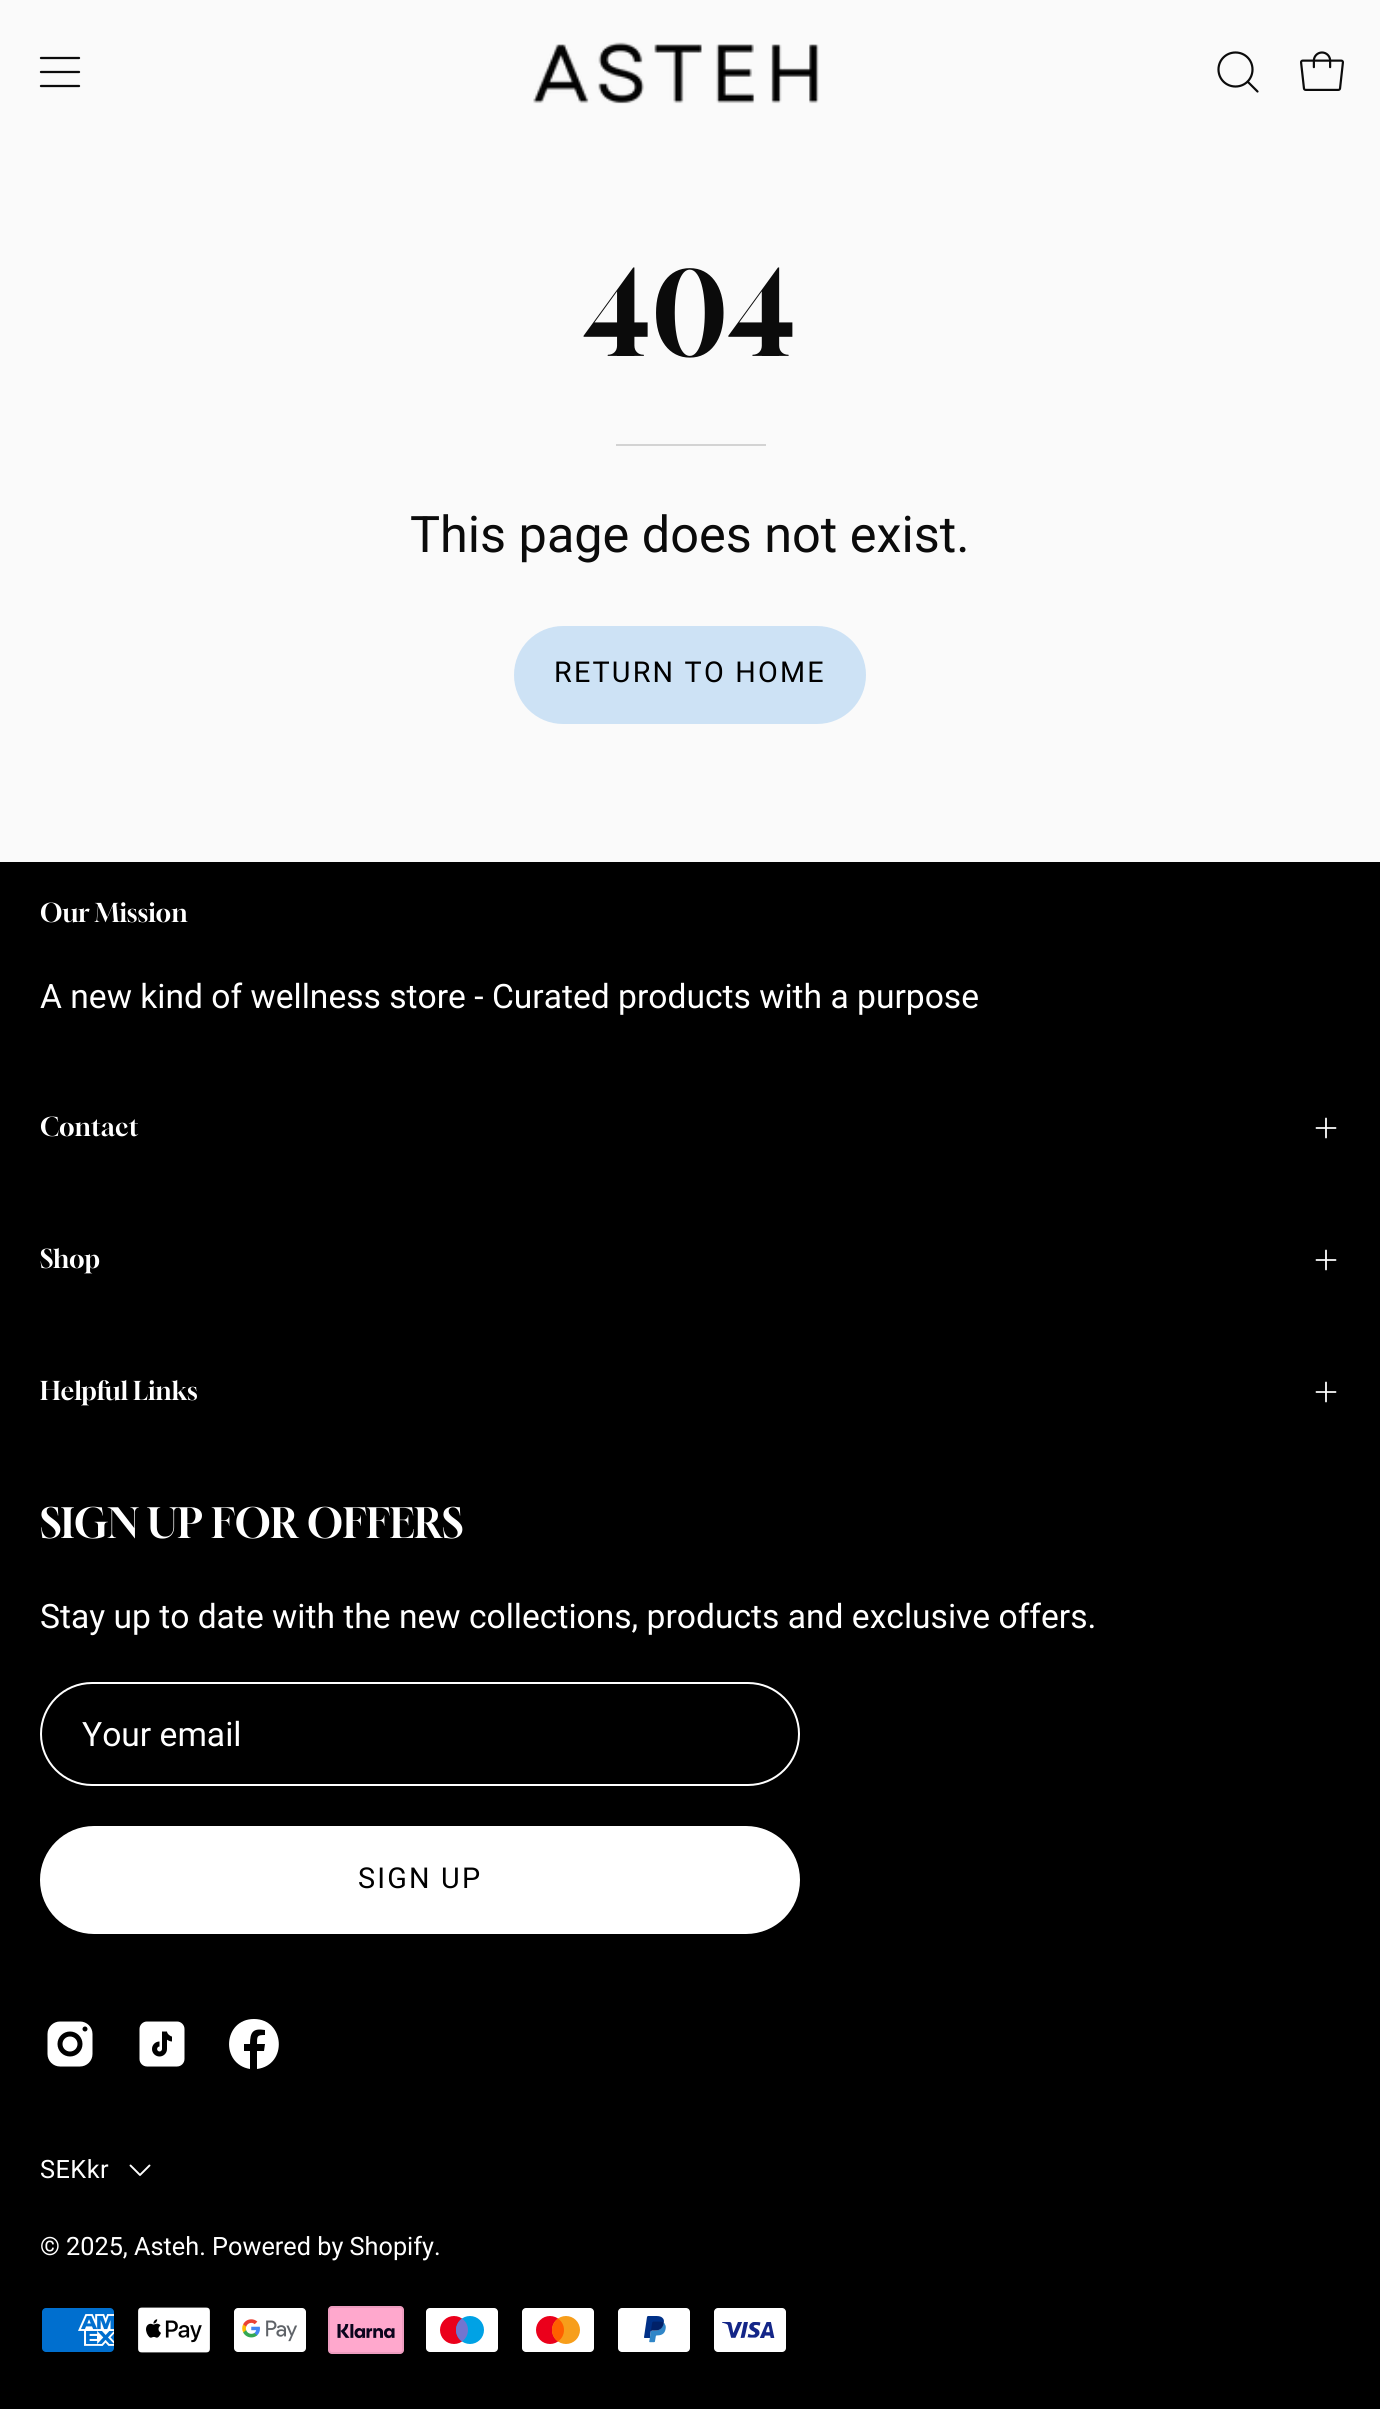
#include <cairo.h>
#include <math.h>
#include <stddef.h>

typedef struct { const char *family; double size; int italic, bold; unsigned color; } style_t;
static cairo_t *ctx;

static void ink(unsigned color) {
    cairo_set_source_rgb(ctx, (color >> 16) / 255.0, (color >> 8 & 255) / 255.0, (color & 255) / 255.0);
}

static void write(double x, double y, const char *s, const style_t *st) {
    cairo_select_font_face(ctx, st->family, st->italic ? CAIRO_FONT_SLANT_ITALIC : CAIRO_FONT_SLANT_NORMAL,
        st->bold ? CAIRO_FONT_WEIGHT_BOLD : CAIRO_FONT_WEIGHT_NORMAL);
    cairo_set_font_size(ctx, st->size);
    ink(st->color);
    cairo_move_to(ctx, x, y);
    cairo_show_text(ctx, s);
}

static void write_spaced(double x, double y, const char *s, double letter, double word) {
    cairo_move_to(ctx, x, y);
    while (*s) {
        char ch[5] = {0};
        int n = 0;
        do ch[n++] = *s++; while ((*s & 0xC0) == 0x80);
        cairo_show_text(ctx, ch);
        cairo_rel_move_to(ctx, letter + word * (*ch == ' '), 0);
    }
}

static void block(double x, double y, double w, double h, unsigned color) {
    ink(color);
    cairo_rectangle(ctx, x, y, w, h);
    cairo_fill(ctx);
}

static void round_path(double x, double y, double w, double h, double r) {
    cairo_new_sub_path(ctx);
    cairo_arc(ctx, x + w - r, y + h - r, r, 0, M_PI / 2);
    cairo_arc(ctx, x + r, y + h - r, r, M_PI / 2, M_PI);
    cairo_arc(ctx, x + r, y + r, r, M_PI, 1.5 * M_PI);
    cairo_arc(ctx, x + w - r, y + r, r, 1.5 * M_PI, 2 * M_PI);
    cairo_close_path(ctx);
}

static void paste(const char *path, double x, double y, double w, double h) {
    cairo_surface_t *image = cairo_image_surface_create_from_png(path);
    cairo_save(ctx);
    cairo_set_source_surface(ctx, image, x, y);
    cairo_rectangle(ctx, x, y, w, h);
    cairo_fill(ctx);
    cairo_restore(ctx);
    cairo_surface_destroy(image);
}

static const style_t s1 = {"Gloock", 115, 0, 0, 0x0b0b0b};
static const style_t s2 = {"Roboto", 50.4, 0, 0, 0x0b0b0b};
static const style_t s3 = {"Gloock", 25.5, 0, 0, 0xffffff};
static const style_t s4 = {"Roboto", 33.6, 0, 0, 0xffffff};
static const style_t s5 = {"Gloock", 41, 0, 0, 0xffffff};
static const style_t s6 = {"Roboto", 25.25, 0, 0, 0xffffff};

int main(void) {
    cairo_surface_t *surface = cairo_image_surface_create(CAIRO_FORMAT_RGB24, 1380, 2409);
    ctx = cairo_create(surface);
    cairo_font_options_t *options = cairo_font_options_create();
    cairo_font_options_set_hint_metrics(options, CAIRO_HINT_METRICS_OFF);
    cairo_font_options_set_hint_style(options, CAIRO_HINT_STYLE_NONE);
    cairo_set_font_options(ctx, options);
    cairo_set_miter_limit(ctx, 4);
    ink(0xfafafa);
    cairo_paint(ctx);
    cairo_new_path(ctx);
    cairo_move_to(ctx, 41, 72);
    cairo_line_to(ctx, 79, 72);
    cairo_move_to(ctx, 41, 58);
    cairo_line_to(ctx, 79, 58);
    cairo_move_to(ctx, 41, 86);
    cairo_line_to(ctx, 79, 86);
    ink(0x0b0b0b);
    cairo_set_line_width(ctx, 2.3);
    cairo_set_line_cap(ctx, CAIRO_LINE_CAP_ROUND);
    cairo_set_line_join(ctx, CAIRO_LINE_JOIN_ROUND);
    cairo_stroke(ctx);
    paste("pic1.png", 533, 42, 286, 62);
    cairo_new_path(ctx);
    cairo_move_to(ctx, 1235.5, 86.5);
    cairo_curve_to(ctx, 1245, 86.5, 1252.5, 79, 1252.5, 69.5);
    cairo_curve_to(ctx, 1252.5, 60, 1245, 52.5, 1235.5, 52.5);
    cairo_curve_to(ctx, 1226, 52.5, 1218.5, 60, 1218.5, 69.5);
    cairo_curve_to(ctx, 1218.5, 79, 1226, 86.5, 1235.5, 86.5);
    cairo_close_path(ctx);
    cairo_move_to(ctx, 1247.5, 81.5);
    cairo_line_to(ctx, 1257.5, 91.5);
    cairo_set_line_width(ctx, 2.2);
    cairo_stroke(ctx);
    paste("pic2.png", 1300, 51, 44, 40);
    write(583, 356, "404", &s1);
    block(616, 444, 150, 2, 0xd3d3d3);
    write(410, 552, "This page does not exist.", &s2);
    ink(0xcde2f5);
    round_path(514, 626, 352, 98, 49);
    cairo_fill(ctx);
    cairo_set_font_size(ctx, 28.75);
    ink(0x000000);
    write_spaced(554, 682, "RETURN TO HOME", 2.2, 0);
    block(0, 862, 1380, 1547, 0x000000);
    write(40, 922, "Our Mission", &s3);
    write(40, 1008, "A new kind of wellness store - Curated products with a purpose", &s4);
    write(40, 1136, "Contact", &s3);
    cairo_new_path(ctx);
    cairo_move_to(ctx, 1316.5, 1128);
    cairo_line_to(ctx, 1335.5, 1128);
    cairo_move_to(ctx, 1326, 1118.5);
    cairo_line_to(ctx, 1326, 1137.5);
    cairo_set_line_width(ctx, 1.8);
    cairo_stroke(ctx);
    write(40, 1268, "Shop", &s3);
    cairo_new_path(ctx);
    cairo_move_to(ctx, 1316.5, 1260);
    cairo_line_to(ctx, 1335.5, 1260);
    cairo_move_to(ctx, 1326, 1250.5);
    cairo_line_to(ctx, 1326, 1269.5);
    cairo_stroke(ctx);
    write(40, 1400, "Helpful Links", &s3);
    cairo_new_path(ctx);
    cairo_move_to(ctx, 1316.5, 1392);
    cairo_line_to(ctx, 1335.5, 1392);
    cairo_move_to(ctx, 1326, 1382.5);
    cairo_line_to(ctx, 1326, 1401.5);
    cairo_stroke(ctx);
    write(40, 1538, "SIGN UP FOR OFFERS", &s5);
    write(40, 1628, "Stay up to date with the new collections, products and exclusive offers.", &s4);
    round_path(41, 1683, 758, 102, 51);
    cairo_set_line_width(ctx, 2);
    cairo_set_line_cap(ctx, CAIRO_LINE_CAP_BUTT);
    cairo_set_line_join(ctx, CAIRO_LINE_JOIN_MITER);
    cairo_stroke(ctx);
    write(82, 1746, "Your email", &s4);
    round_path(40, 1826, 760, 108, 54);
    cairo_fill(ctx);
    cairo_set_font_size(ctx, 28.75);
    ink(0x000000);
    write_spaced(358, 1888, "SIGN UP", 2.2, 0);
    paste("pic3.png", 47, 2021, 46, 46);
    paste("pic4.png", 139, 2021, 46, 46);
    ink(0xffffff);
    cairo_new_path(ctx);
    cairo_move_to(ctx, 254, 2019);
    cairo_curve_to(ctx, 223, 2019, 220, 2064, 250, 2069);
    cairo_line_to(ctx, 250, 2051);
    cairo_line_to(ctx, 244, 2051);
    cairo_line_to(ctx, 244, 2044);
    cairo_line_to(ctx, 250, 2044);
    cairo_curve_to(ctx, 250, 2032, 253, 2028, 265, 2030);
    cairo_line_to(ctx, 265, 2035);
    cairo_curve_to(ctx, 257, 2035, 257, 2036, 257, 2044);
    cairo_line_to(ctx, 265, 2044);
    cairo_line_to(ctx, 264, 2051);
    cairo_line_to(ctx, 257, 2051);
    cairo_line_to(ctx, 257, 2069);
    cairo_curve_to(ctx, 288, 2065, 285, 2019, 254, 2019);
    cairo_close_path(ctx);
    cairo_fill(ctx);
    cairo_set_font_size(ctx, 25.25);
    write_spaced(40, 2178, "SEKkr", 0.5, 0);
    cairo_new_path(ctx);
    cairo_move_to(ctx, 149.5, 2165.5);
    cairo_line_to(ctx, 140, 2175);
    cairo_line_to(ctx, 130.5, 2165.5);
    cairo_set_line_width(ctx, 1.9);
    cairo_set_line_cap(ctx, CAIRO_LINE_CAP_ROUND);
    cairo_set_line_join(ctx, CAIRO_LINE_JOIN_ROUND);
    cairo_stroke(ctx);
    write(40, 2255, "© 2025, Asteh. Powered by Shopify.", &s6);
    paste("pic5.png", 42, 2308, 72, 44);
    paste("pic6.png", 138, 2307, 72, 46);
    paste("pic7.png", 234, 2308, 72, 44);
    paste("pic8.png", 328, 2306, 76, 48);
    paste("pic9.png", 426, 2308, 72, 44);
    paste("pic10.png", 522, 2308, 72, 44);
    paste("pic11.png", 618, 2308, 72, 44);
    paste("pic12.png", 714, 2308, 72, 44);
    cairo_surface_write_to_png(surface, "screenshot.png");
    cairo_font_options_destroy(options);
    cairo_destroy(ctx);
    cairo_surface_destroy(surface);
    return 0;
}
